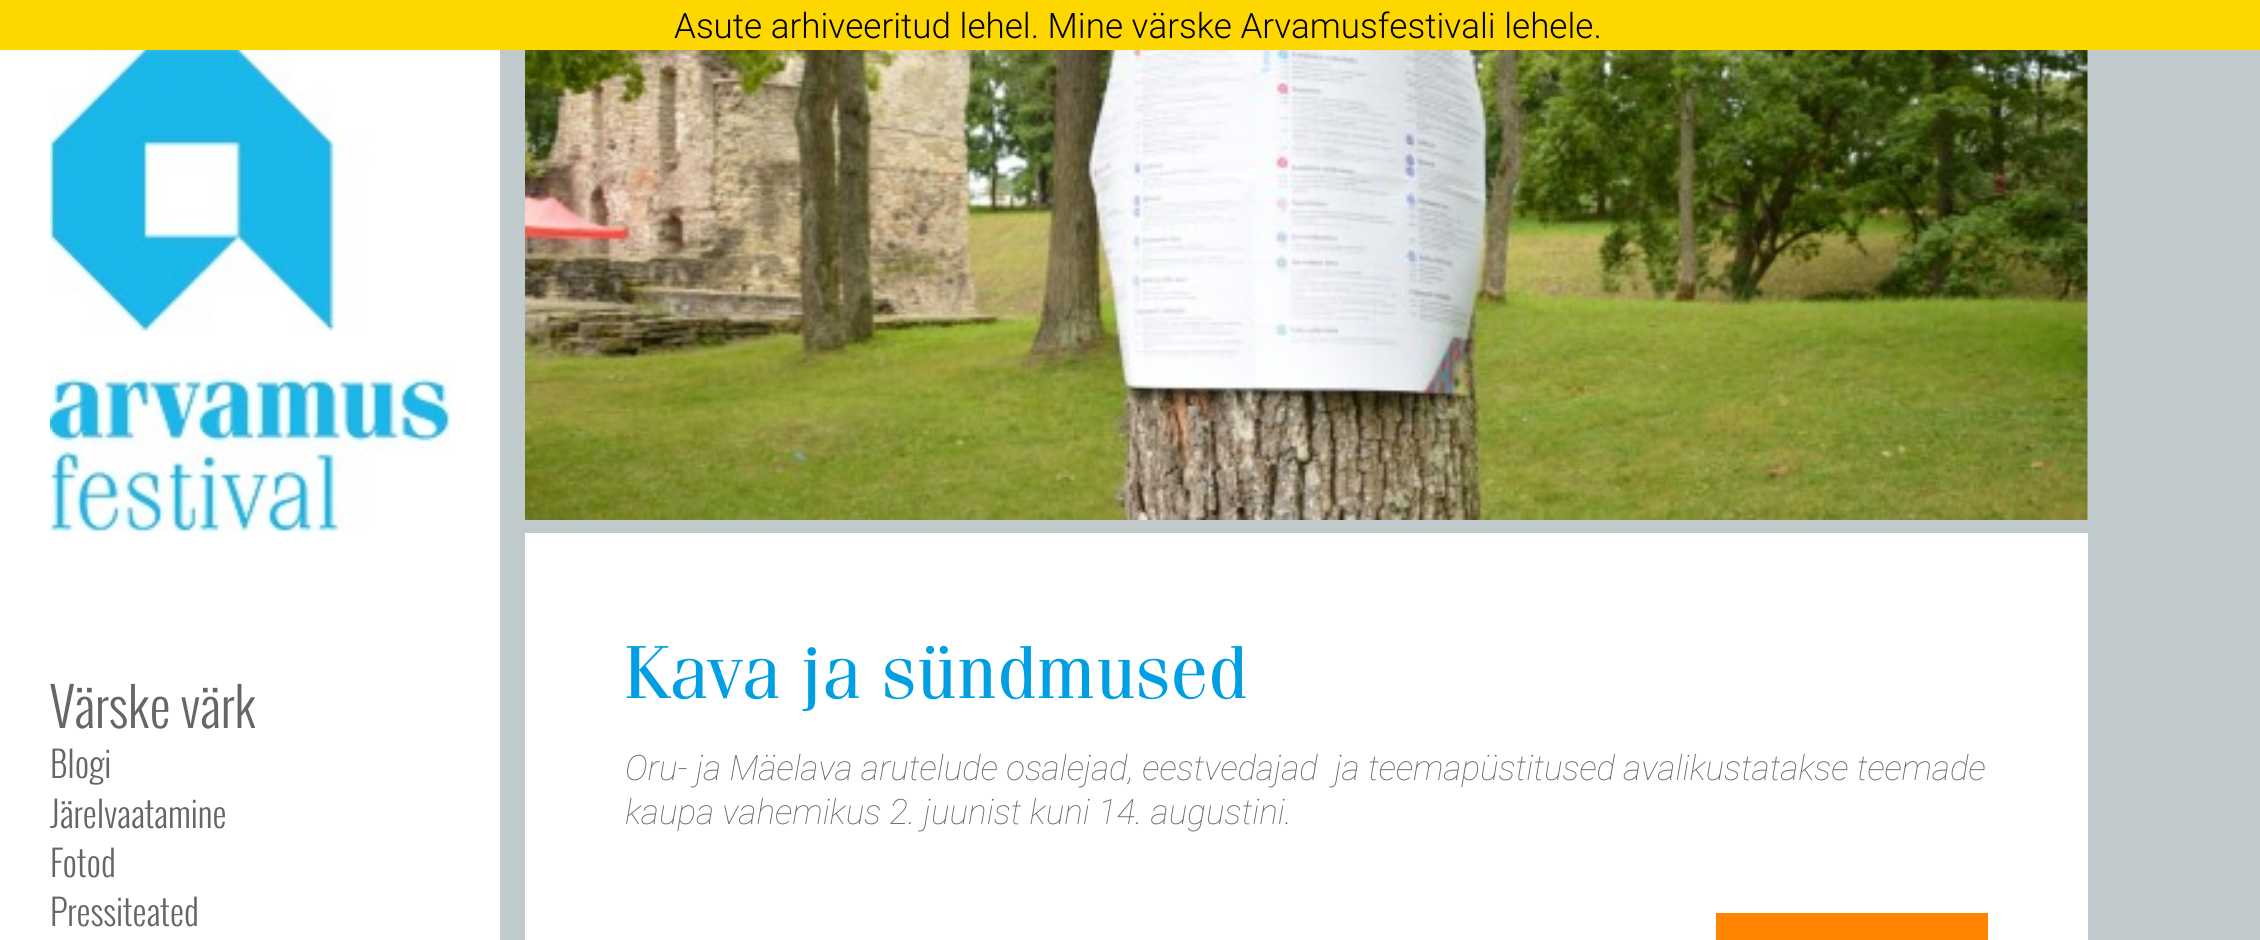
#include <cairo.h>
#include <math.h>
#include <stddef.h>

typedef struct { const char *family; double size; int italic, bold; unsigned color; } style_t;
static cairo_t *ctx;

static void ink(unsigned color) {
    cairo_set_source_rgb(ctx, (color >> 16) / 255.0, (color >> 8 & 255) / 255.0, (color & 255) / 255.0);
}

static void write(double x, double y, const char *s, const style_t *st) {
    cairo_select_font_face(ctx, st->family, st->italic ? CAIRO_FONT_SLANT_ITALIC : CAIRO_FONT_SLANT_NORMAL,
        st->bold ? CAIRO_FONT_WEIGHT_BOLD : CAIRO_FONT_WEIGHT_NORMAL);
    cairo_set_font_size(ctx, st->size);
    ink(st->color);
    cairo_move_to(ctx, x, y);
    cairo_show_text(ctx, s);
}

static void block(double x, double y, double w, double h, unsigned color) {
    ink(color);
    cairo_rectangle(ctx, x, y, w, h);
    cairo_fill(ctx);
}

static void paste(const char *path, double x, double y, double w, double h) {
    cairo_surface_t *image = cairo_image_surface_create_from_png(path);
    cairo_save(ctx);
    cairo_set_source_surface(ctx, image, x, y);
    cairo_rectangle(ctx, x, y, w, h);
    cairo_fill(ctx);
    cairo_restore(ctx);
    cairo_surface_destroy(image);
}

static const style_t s1 = {"Roboto Light", 35, 0, 0, 0x000000};
static const style_t s2 = {"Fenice", 75, 0, 0, 0x009fe3};
static const style_t s3 = {"Roboto Thin", 35, 1, 0, 0x666666};
static const style_t s4 = {"Oswald Light", 52.5, 0, 0, 0x666666};
static const style_t s5 = {"Oswald Light", 35, 0, 0, 0x666666};

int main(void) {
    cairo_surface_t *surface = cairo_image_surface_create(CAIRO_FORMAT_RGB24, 2260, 940);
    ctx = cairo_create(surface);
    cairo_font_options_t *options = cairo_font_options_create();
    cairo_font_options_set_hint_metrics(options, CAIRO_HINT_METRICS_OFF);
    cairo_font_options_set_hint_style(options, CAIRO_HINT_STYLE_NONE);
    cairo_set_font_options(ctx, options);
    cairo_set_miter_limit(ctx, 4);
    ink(0xc0c9cc);
    cairo_paint(ctx);
    block(0, 0, 2260, 50, 0xffd700);
    write(674, 38, "Asute arhiveeritud lehel. Mine värske Arvamusfestivali lehele.", &s1);
    block(0, 50, 500, 890, 0xffffff);
    paste("pic1.png", 525, 50, 1563, 470);
    block(525, 533, 1563, 407, 0xffffff);
    write(625, 698, "Kava ja sündmused", &s2);
    write(625, 780, "Oru- ja Mäelava arutelude osalejad, eestvedajad  ja teemapüstitused avalikustatakse teemade", &s3);
    write(625, 824, "kaupa vahemikus 2. juunist kuni 14. augustini.", &s3);
    block(1716, 913, 272, 27, 0xff8500);
    paste("pic2.png", 50, 50, 400, 484);
    write(50, 728, "Värske värk", &s4);
    write(50, 778, "Blogi", &s5);
    write(50, 828, "Järelvaatamine", &s5);
    write(50, 877, "Fotod", &s5);
    write(50, 926, "Pressiteated", &s5);
    cairo_surface_write_to_png(surface, "screenshot.png");
    cairo_font_options_destroy(options);
    cairo_destroy(ctx);
    cairo_surface_destroy(surface);
    return 0;
}
